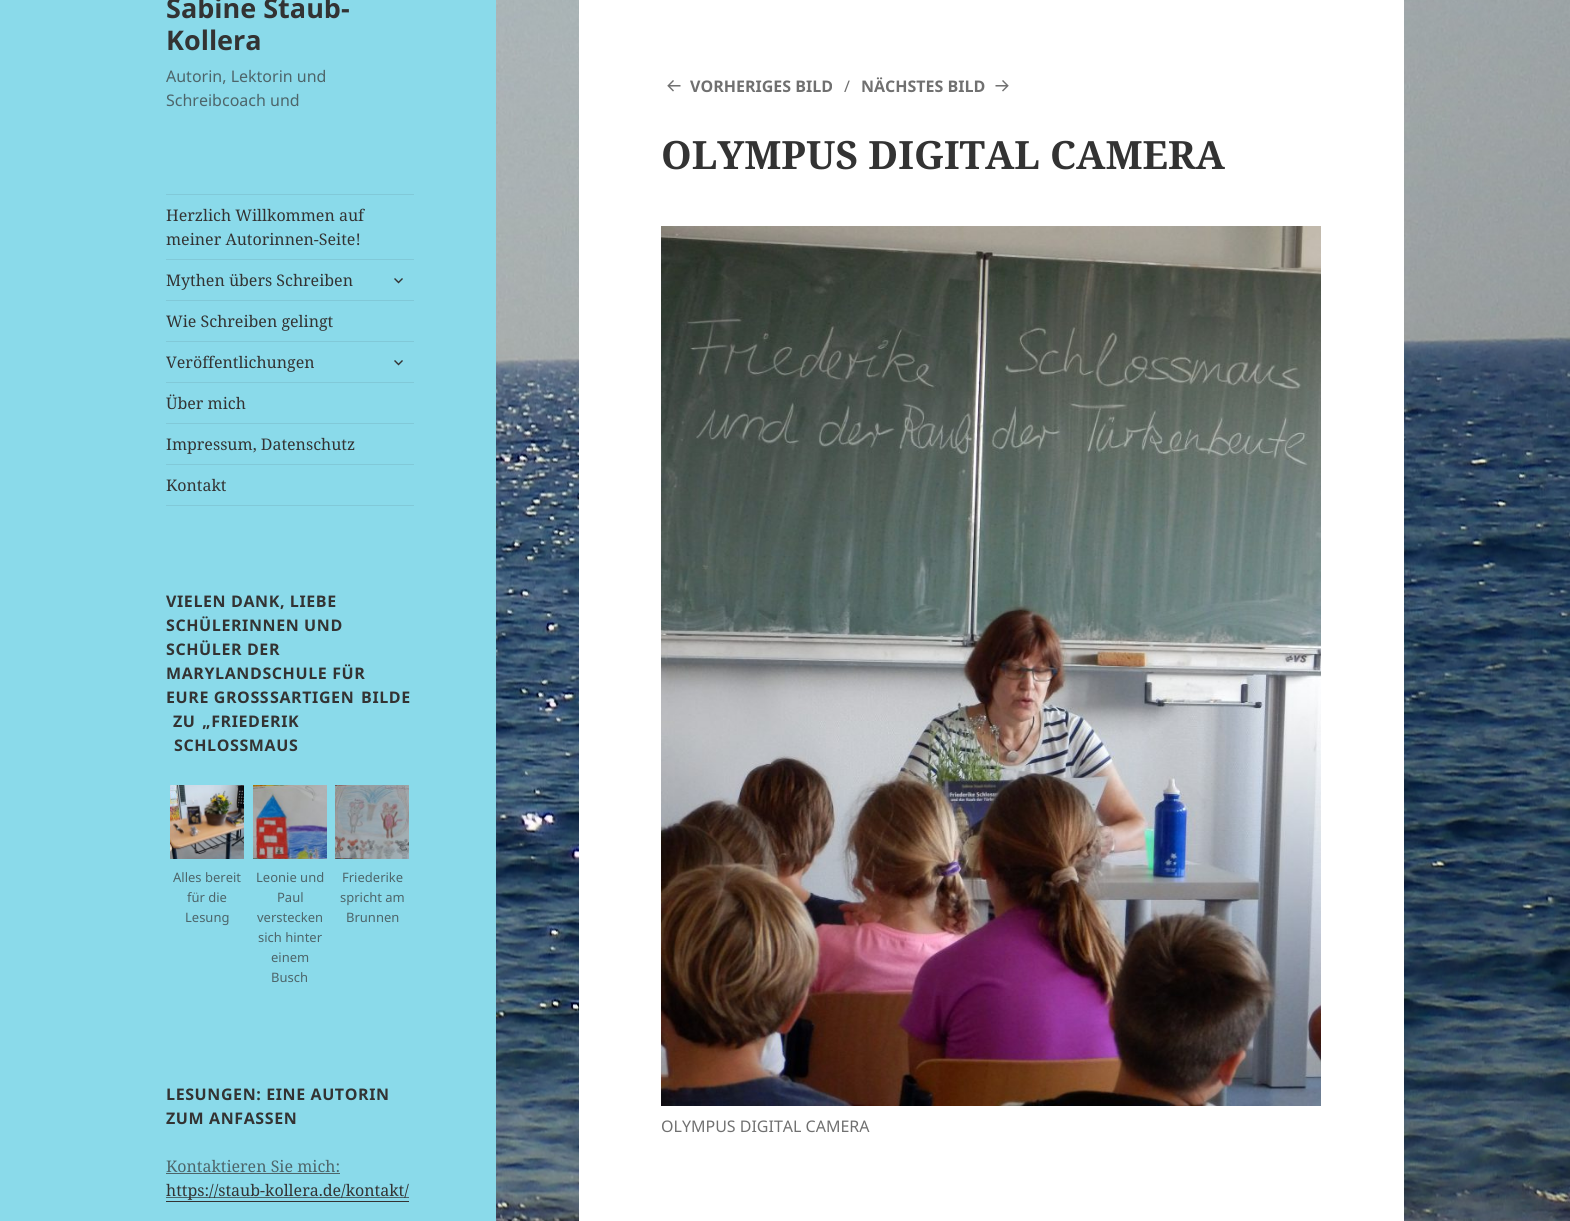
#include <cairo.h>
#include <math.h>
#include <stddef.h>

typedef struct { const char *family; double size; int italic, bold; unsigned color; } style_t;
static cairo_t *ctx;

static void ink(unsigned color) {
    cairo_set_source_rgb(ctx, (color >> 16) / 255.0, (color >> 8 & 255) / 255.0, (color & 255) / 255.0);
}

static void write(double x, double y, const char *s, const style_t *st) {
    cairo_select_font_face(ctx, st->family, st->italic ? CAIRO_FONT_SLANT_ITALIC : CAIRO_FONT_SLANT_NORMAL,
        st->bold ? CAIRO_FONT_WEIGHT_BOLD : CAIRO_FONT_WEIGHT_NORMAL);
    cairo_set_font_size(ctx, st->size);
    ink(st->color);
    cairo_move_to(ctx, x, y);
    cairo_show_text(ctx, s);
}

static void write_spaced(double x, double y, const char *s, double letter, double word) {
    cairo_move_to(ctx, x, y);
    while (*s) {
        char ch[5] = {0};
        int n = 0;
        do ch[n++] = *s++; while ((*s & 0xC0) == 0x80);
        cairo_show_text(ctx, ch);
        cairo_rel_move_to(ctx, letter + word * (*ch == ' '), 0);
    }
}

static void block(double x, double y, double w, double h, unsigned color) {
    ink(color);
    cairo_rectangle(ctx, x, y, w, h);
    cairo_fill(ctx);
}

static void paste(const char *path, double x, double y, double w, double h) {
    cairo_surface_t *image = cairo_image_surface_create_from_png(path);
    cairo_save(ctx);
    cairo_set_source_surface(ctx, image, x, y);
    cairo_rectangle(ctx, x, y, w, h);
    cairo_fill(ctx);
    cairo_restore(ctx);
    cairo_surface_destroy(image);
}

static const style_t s1 = {"Noto Sans", 27, 0, 1, 0x333333};
static const style_t s2 = {"Noto Sans", 16, 0, 0, 0x4d656a};
static const style_t s3 = {"Noto Serif", 16, 0, 0, 0x333333};
static const style_t s4 = {"Noto Sans", 13, 0, 0, 0x4d656a};
static const style_t s5 = {"Noto Serif", 16, 0, 0, 0x4d656a};
static const style_t s6 = {"Noto Sans", 16, 0, 1, 0x707070};
static const style_t s7 = {"Noto Sans", 16, 0, 0, 0x707070};
static const style_t s8 = {"Noto Serif", 39, 0, 1, 0x333333};

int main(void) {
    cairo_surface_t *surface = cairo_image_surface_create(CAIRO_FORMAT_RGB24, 1570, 1221);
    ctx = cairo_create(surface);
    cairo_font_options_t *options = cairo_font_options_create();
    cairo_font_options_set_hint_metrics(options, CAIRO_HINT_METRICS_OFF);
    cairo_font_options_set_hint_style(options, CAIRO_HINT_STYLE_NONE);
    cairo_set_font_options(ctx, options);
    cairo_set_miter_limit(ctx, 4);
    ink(0xffffff);
    cairo_paint(ctx);
    paste("pic1.png", 496, 0, 1074, 1221);
    block(0, 0, 496, 1221, 0x8adaea);
    write(166, 18, "Sabine Staub-", &s1);
    write(166, 50, "Kollera", &s1);
    write(166, 82, "Autorin, Lektorin und", &s2);
    write(166, 106, "Schreibcoach und", &s2);
    block(166, 194, 248, 1, 0x81c9d8);
    block(166, 505, 248, 1, 0x81c9d8);
    write(166, 221, "Herzlich Willkommen auf", &s3);
    write(166, 245, "meiner Autorinnen-Seite!", &s3);
    block(166, 259, 248, 1, 0x81c9d8);
    write(166, 286, "Mythen übers Schreiben", &s3);
    paste("pic2.png", 394, 278, 9, 6);
    block(166, 300, 248, 1, 0x81c9d8);
    write(166, 327, "Wie Schreiben gelingt", &s3);
    block(166, 341, 248, 1, 0x81c9d8);
    write(166, 368, "Veröffentlichungen", &s3);
    paste("pic2.png", 394, 360, 9, 6);
    block(166, 382, 248, 1, 0x81c9d8);
    write(166, 409, "Über mich", &s3);
    block(166, 423, 248, 1, 0x81c9d8);
    write(166, 450, "Impressum, Datenschutz", &s3);
    block(166, 464, 248, 1, 0x81c9d8);
    write(166, 491, "Kontakt", &s3);
    cairo_select_font_face(ctx, "Noto Sans", CAIRO_FONT_SLANT_NORMAL, CAIRO_FONT_WEIGHT_BOLD);
    write_spaced(166, 607, "VIELEN DANK, LIEBE", 0.6, 0);
    write_spaced(166, 631, "SCHÜLERINNEN UND", 0.6, 0);
    write_spaced(166, 655, "SCHÜLER DER", 0.6, 0);
    write_spaced(166, 679, "MARYLANDSCHULE FÜR", 0.6, 0);
    write_spaced(166, 703, "EURE GROSS", 0.6, 0);
    write_spaced(270, 703, "SARTIGEN BILDE", 0.6, 2);
    write_spaced(173, 727, "ZU „FRIEDERIK", 0.6, 2);
    write_spaced(174, 751, "SCHLOSSMAUS", 0.6, 0);
    paste("pic3.png", 170, 785, 74, 74);
    write(173, 882, "Alles bereit", &s4);
    write(187, 902, "für die", &s4);
    write(185, 922, "Lesung", &s4);
    paste("pic4.png", 253, 785, 74, 74);
    write(256, 882, "Leonie und", &s4);
    write(277, 902, "Paul", &s4);
    write(257, 922, "verstecken", &s4);
    write(258, 942, "sich hinter", &s4);
    write(271, 962, "einem", &s4);
    write(271, 982, "Busch", &s4);
    paste("pic5.png", 335, 785, 74, 74);
    write(342, 882, "Friederike", &s4);
    write(340, 902, "spricht am", &s4);
    write(346, 922, "Brunnen", &s4);
    cairo_select_font_face(ctx, "Noto Sans", CAIRO_FONT_SLANT_NORMAL, CAIRO_FONT_WEIGHT_BOLD);
    cairo_set_font_size(ctx, 16);
    ink(0x333333);
    write_spaced(166, 1100, "LESUNGEN: EINE AUTORIN", 0.6, 0);
    write_spaced(166, 1124, "ZUM ANFASSEN", 0.6, 0);
    write(166, 1172, "Kontaktieren Sie mich:", &s5);
    block(166, 1173, 174, 1, 0x4d656a);
    block(166, 1197, 243, 1, 0x4d656a);
    write(166, 1196, "https://staub-kollera.de/kontakt/", &s3);
    block(166, 1201, 243, 1, 0x333333);
    block(579, 0, 825, 1221, 0xffffff);
    paste("pic6.png", 667, 80, 14, 12);
    write(690, 92, "VORHERIGES BILD", &s6);
    write(844, 92, "∕", &s7);
    write(861, 92, "NÄCHSTES BILD", &s6);
    paste("pic7.png", 995, 80, 14, 12);
    write(661, 169, "OLYMPUS DIGITAL CAMERA", &s8);
    paste("pic8.png", 661, 226, 660, 880);
    write(661, 1132, "OLYMPUS DIGITAL CAMERA", &s7);
    cairo_surface_write_to_png(surface, "screenshot.png");
    cairo_font_options_destroy(options);
    cairo_destroy(ctx);
    cairo_surface_destroy(surface);
    return 0;
}
